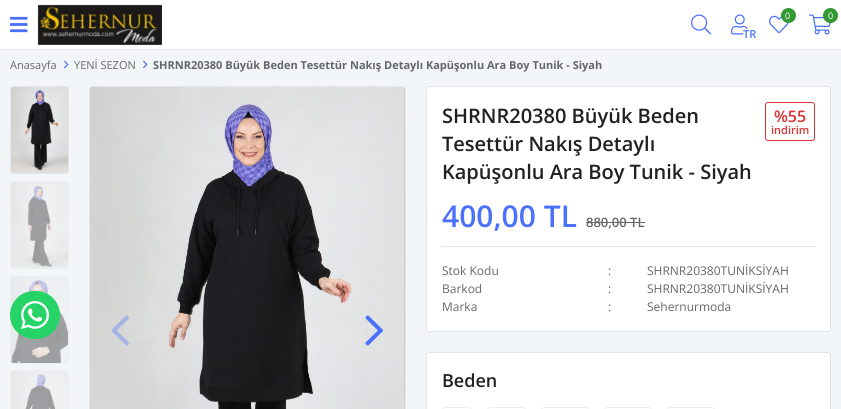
#include <cairo.h>
#include <math.h>
#include <stddef.h>

typedef struct { const char *family; double size; int italic, bold; unsigned color; } style_t;
static cairo_t *ctx;

static void ink(unsigned color) {
    cairo_set_source_rgb(ctx, (color >> 16) / 255.0, (color >> 8 & 255) / 255.0, (color & 255) / 255.0);
}

static void write(double x, double y, const char *s, const style_t *st) {
    cairo_select_font_face(ctx, st->family, st->italic ? CAIRO_FONT_SLANT_ITALIC : CAIRO_FONT_SLANT_NORMAL,
        st->bold ? CAIRO_FONT_WEIGHT_BOLD : CAIRO_FONT_WEIGHT_NORMAL);
    cairo_set_font_size(ctx, st->size);
    ink(st->color);
    cairo_move_to(ctx, x, y);
    cairo_show_text(ctx, s);
}

static void block(double x, double y, double w, double h, unsigned color) {
    ink(color);
    cairo_rectangle(ctx, x, y, w, h);
    cairo_fill(ctx);
}

static void round_path(double x, double y, double w, double h, double r) {
    cairo_new_sub_path(ctx);
    cairo_arc(ctx, x + w - r, y + h - r, r, 0, M_PI / 2);
    cairo_arc(ctx, x + r, y + h - r, r, M_PI / 2, M_PI);
    cairo_arc(ctx, x + r, y + r, r, M_PI, 1.5 * M_PI);
    cairo_arc(ctx, x + w - r, y + r, r, 1.5 * M_PI, 2 * M_PI);
    cairo_close_path(ctx);
}

static void paste(const char *path, double x, double y, double w, double h) {
    cairo_surface_t *image = cairo_image_surface_create_from_png(path);
    cairo_save(ctx);
    cairo_set_source_surface(ctx, image, x, y);
    cairo_rectangle(ctx, x, y, w, h);
    cairo_fill(ctx);
    cairo_restore(ctx);
    cairo_surface_destroy(image);
}

static const style_t s1 = {"Open Sans SemiBold", 11, 0, 0, 0x4b71fc};
static const style_t s2 = {"Open Sans", 9, 0, 0, 0xffffff};
static const style_t s3 = {"Open Sans", 11, 0, 0, 0x666666};
static const style_t s4 = {"Open Sans", 11, 0, 1, 0x666666};
static const style_t s5 = {"Open Sans SemiBold", 20, 0, 0, 0x212121};
static const style_t s6 = {"Open Sans SemiBold", 30, 0, 0, 0x4b71fc};
static const style_t s7 = {"Open Sans SemiBold", 16, 0, 0, 0xdd3333};
static const style_t s8 = {"Open Sans SemiBold", 11, 0, 0, 0xdd3333};
static const style_t s9 = {"Open Sans SemiBold", 13, 0, 0, 0x666666};
static const style_t s10 = {"Open Sans", 12, 0, 0, 0x666666};
static const style_t s11 = {"Open Sans SemiBold", 18, 0, 0, 0x212121};

int main(void) {
    cairo_surface_t *surface = cairo_image_surface_create(CAIRO_FORMAT_RGB24, 841, 409);
    ctx = cairo_create(surface);
    cairo_font_options_t *options = cairo_font_options_create();
    cairo_font_options_set_hint_metrics(options, CAIRO_HINT_METRICS_OFF);
    cairo_font_options_set_hint_style(options, CAIRO_HINT_STYLE_NONE);
    cairo_set_font_options(ctx, options);
    cairo_set_miter_limit(ctx, 4);
    ink(0xf3f6f9);
    cairo_paint(ctx);
    block(0, 0, 841, 49, 0xffffff);
    block(0, 49, 841, 1, 0xe2e6eb);
    paste("pic1.png", 10, 16, 18, 17);
    paste("pic2.png", 37, 4, 125, 41);
    paste("pic3.png", 691, 14, 20, 21);
    paste("pic4.png", 731, 14, 17, 21);
    ink(0xffffff);
    cairo_arc(ctx, 750.5, 35.5, 7.5, 0, 2 * M_PI);
    cairo_fill(ctx);
    write(743, 38, "TR", &s1);
    paste("pic5.png", 769, 15, 20, 19);
    ink(0x339933);
    cairo_arc(ctx, 788.5, 15.5, 7.5, 0, 2 * M_PI);
    cairo_fill(ctx);
    write(785, 19, "0", &s2);
    paste("pic6.png", 809, 14, 22, 21);
    ink(0x339933);
    cairo_arc(ctx, 830.5, 15.5, 7.5, 0, 2 * M_PI);
    cairo_fill(ctx);
    write(828, 19, "0", &s2);
    write(10, 69, "Anasayfa", &s3);
    paste("pic7.png", 64, 60, 5, 9);
    write(74, 69, "YENİ SEZON", &s3);
    paste("pic7.png", 143, 60, 5, 9);
    write(153, 69, "SHRNR20380 Büyük Beden Tesettür Nakış Detaylı Kapüşonlu Ara Boy Tunik - Siyah", &s4);
    round_path(10.5, 86.5, 58, 87, 2.5);
    ink(0xe2e6eb);
    cairo_set_line_width(ctx, 1);
    cairo_stroke(ctx);
    paste("pic8.png", 11, 87, 57, 86);
    round_path(10.5, 181.5, 58, 87, 2.5);
    ink(0xecf0f3);
    cairo_stroke(ctx);
    paste("pic9.png", 11, 182, 57, 86);
    round_path(10.5, 276.5, 58, 87, 2.5);
    cairo_stroke(ctx);
    paste("pic10.png", 11, 277, 57, 86);
    round_path(10.5, 370.5, 58, 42, 2.5);
    cairo_stroke(ctx);
    paste("pic11.png", 11, 371, 57, 38);
    round_path(89.5, 86.5, 316, 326, 2.5);
    ink(0xe2e6eb);
    cairo_stroke(ctx);
    paste("pic12.png", 90, 87, 314, 322);
    paste("pic13.png", 404, 87, 1, 322);
    paste("pic14.png", 111, 315, 18, 31);
    paste("pic15.png", 365, 315, 18, 31);
    ink(0xffffff);
    round_path(426.5, 86.5, 404, 245, 2.5);
    cairo_fill_preserve(ctx);
    ink(0xe2e6eb);
    cairo_stroke(ctx);
    write(442, 123, "SHRNR20380 Büyük Beden", &s5);
    write(442, 151, "Tesettür Nakış Detaylı", &s5);
    write(442, 179, "Kapüşonlu Ara Boy Tunik - Siyah", &s5);
    block(442, 246, 373, 1, 0xe2e6eb);
    write(442, 227, "400,00 TL", &s6);
    round_path(765.5, 102.5, 49, 38, 2.5);
    ink(0xdd3333);
    cairo_stroke(ctx);
    write(774, 122, "%55", &s7);
    write(771, 134, "indirim", &s8);
    write(586, 227, "880,00 TL", &s9);
    block(586, 222, 59, 1, 0x666666);
    write(442, 275, "Stok Kodu", &s10);
    write(608, 275, ":", &s10);
    write(647, 275, "SHRNR20380TUNİKSİYAH", &s10);
    write(442, 293, "Barkod", &s10);
    write(608, 293, ":", &s10);
    write(647, 293, "SHRNR20380TUNİKSİYAH", &s10);
    write(442, 311, "Marka", &s10);
    write(608, 311, ":", &s10);
    write(647, 311, "Sehernurmoda", &s10);
    ink(0xffffff);
    round_path(426.5, 352.5, 404, 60, 2.5);
    cairo_fill_preserve(ctx);
    ink(0xe2e6eb);
    cairo_stroke(ctx);
    write(442, 387, "Beden", &s11);
    round_path(442.5, 407.5, 29, 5, 2.5);
    ink(0xebeef1);
    cairo_stroke(ctx);
    round_path(487.5, 407.5, 38, 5, 2.5);
    cairo_stroke(ctx);
    round_path(541.5, 407.5, 47, 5, 2.5);
    cairo_stroke(ctx);
    round_path(604.5, 407.5, 47, 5, 2.5);
    cairo_stroke(ctx);
    round_path(667.5, 407.5, 47, 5, 2.5);
    cairo_stroke(ctx);
    ink(0x25d366);
    round_path(10, 291, 50, 48, 24);
    cairo_fill(ctx);
    paste("pic16.png", 21, 301, 28, 28);
    cairo_surface_write_to_png(surface, "screenshot.png");
    cairo_font_options_destroy(options);
    cairo_destroy(ctx);
    cairo_surface_destroy(surface);
    return 0;
}
